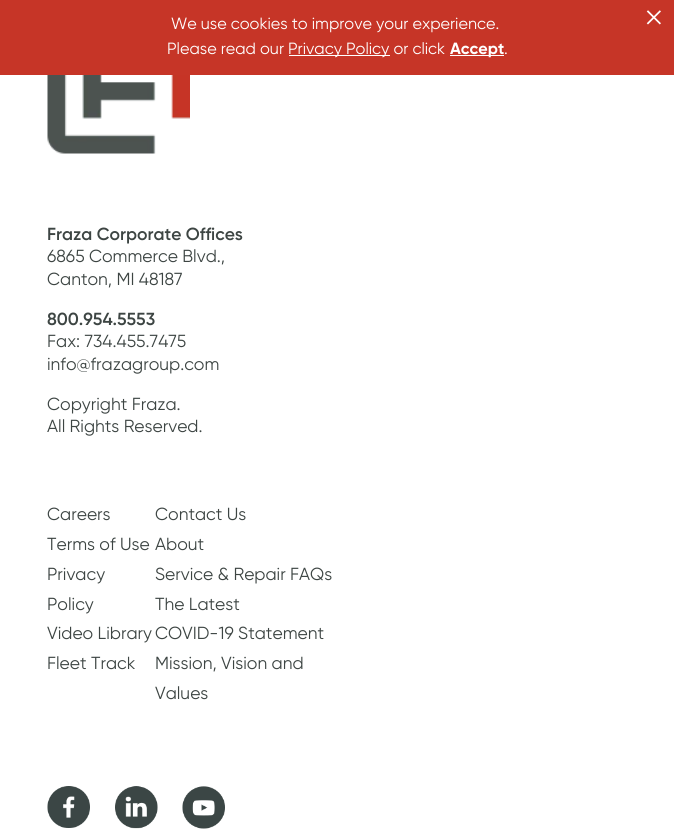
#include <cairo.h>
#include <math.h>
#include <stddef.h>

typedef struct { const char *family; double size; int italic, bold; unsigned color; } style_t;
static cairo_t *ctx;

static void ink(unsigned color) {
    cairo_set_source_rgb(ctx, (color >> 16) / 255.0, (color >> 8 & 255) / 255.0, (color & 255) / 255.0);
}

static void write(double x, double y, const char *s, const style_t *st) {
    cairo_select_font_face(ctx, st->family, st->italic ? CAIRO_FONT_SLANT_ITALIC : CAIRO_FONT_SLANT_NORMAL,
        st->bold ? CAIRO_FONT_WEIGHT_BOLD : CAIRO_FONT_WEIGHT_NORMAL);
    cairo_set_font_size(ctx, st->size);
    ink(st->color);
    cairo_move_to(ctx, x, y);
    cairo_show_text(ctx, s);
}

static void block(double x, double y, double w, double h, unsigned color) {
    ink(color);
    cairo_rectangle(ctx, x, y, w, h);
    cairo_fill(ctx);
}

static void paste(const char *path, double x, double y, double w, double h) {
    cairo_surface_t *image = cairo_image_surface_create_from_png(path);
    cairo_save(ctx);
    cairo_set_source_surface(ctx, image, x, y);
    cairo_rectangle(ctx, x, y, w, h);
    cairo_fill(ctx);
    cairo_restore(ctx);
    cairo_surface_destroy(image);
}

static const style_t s1 = {"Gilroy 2", 16.25, 0, 0, 0xffffff};
static const style_t s2 = {"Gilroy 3", 16.25, 0, 0, 0xffffff};
static const style_t s3 = {"Liberation Serif", 35, 0, 0, 0xffffff};
static const style_t s4 = {"Gilroy", 17.5, 0, 0, 0x3d4543};
static const style_t s5 = {"Gilroy 2", 17.5, 0, 0, 0x3d4543};

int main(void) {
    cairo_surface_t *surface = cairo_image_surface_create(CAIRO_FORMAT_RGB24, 674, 837);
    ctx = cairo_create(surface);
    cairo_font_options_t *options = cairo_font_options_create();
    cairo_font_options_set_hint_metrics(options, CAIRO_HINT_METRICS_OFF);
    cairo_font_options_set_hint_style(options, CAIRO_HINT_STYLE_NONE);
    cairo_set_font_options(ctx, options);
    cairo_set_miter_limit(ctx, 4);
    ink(0xffffff);
    cairo_paint(ctx);
    block(0, 0, 674, 75, 0xc63527);
    write(171, 29, "We use cookies to improve your experience.", &s1);
    write(167, 54, "Please read our", &s1);
    block(289, 55, 101, 1, 0xffffff);
    write(288, 54, "Privacy Policy or click", &s1);
    block(450, 55, 54, 1, 0xffffff);
    write(450, 54, "Accept", &s2);
    write(504, 54, ".", &s1);
    write(644, 29, "×", &s3);
    paste("pic1.png", 47, 75, 143, 79);
    write(47, 240, "Fraza Corporate Offices", &s4);
    write(47, 262, "6865 Commerce Blvd.,", &s5);
    write(47, 285, "Canton, MI 48187", &s5);
    write(47, 325, "800.954.5553", &s4);
    write(47, 347, "Fax: 734.455.7475", &s5);
    write(47, 370, "info@frazagroup.com", &s5);
    write(47, 410, "Copyright Fraza.", &s5);
    write(47, 432, "All Rights Reserved.", &s5);
    write(47, 520, "Careers", &s5);
    write(47, 550, "Terms of Use", &s5);
    write(47, 580, "Privacy", &s5);
    write(47, 610, "Policy", &s5);
    write(47, 639, "Video Library", &s5);
    write(47, 669, "Fleet Track", &s5);
    write(155, 520, "Contact Us", &s5);
    write(155, 550, "About", &s5);
    write(155, 580, "Service & Repair FAQs", &s5);
    write(155, 610, "The Latest", &s5);
    write(155, 639, "COVID-19 Statement", &s5);
    write(155, 669, "Mission, Vision and", &s5);
    write(155, 699, "Values", &s5);
    paste("pic2.png", 47, 786, 43, 42);
    paste("pic3.png", 115, 786, 43, 43);
    paste("pic4.png", 182, 786, 43, 43);
    cairo_surface_write_to_png(surface, "screenshot.png");
    cairo_font_options_destroy(options);
    cairo_destroy(ctx);
    cairo_surface_destroy(surface);
    return 0;
}
